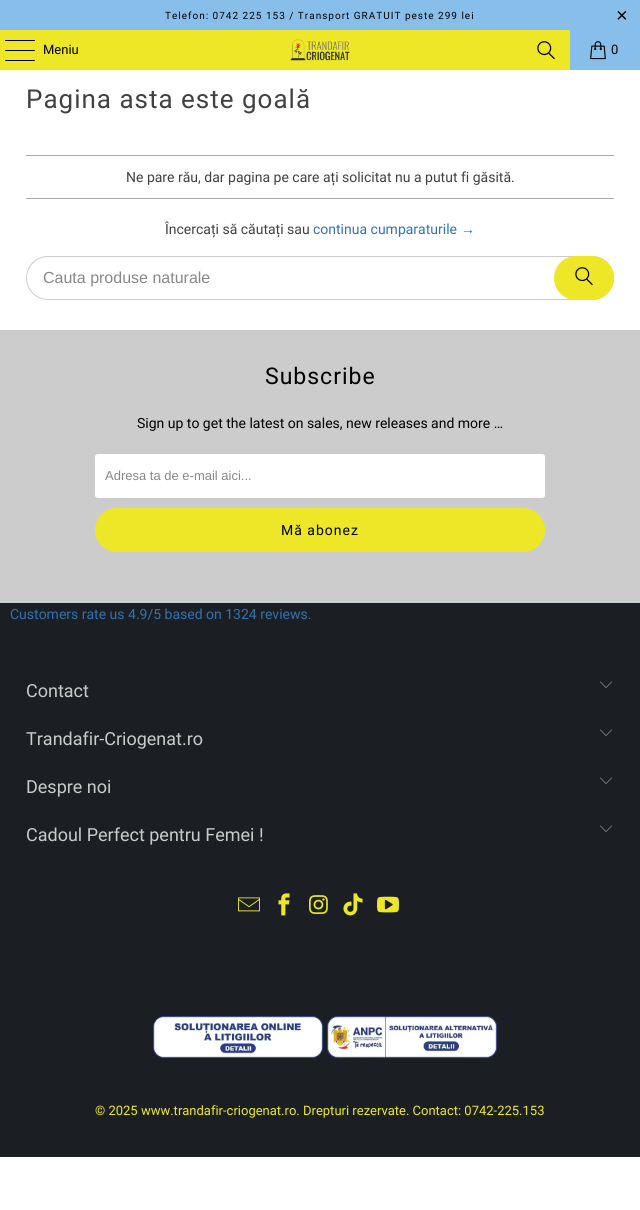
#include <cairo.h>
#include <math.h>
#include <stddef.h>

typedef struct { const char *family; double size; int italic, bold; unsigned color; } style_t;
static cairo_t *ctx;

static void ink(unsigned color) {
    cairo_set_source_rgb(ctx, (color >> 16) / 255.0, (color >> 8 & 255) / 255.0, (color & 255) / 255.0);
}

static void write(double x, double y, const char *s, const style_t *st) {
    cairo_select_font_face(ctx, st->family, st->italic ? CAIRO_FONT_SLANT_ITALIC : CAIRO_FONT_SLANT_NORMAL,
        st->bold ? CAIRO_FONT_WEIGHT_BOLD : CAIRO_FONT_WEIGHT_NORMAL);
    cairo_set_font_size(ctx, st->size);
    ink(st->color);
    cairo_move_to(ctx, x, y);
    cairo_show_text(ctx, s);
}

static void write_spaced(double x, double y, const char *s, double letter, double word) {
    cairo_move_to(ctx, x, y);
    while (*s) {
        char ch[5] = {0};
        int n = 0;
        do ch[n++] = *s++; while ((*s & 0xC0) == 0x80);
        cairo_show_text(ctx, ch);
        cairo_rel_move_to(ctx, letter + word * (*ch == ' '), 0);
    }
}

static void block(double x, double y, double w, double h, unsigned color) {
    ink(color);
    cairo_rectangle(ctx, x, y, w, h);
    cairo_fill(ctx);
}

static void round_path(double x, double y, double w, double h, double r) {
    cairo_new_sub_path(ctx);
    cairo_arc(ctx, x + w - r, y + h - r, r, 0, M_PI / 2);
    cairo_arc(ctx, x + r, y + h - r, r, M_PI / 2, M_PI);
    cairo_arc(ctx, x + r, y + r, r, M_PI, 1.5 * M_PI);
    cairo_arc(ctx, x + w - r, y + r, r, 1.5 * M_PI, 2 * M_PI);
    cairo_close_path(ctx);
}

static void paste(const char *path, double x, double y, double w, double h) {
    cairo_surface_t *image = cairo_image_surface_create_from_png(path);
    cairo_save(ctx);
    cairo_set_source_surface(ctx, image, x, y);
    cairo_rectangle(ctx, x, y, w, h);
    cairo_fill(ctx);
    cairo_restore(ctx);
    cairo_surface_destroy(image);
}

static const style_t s1 = {"Roboto", 13, 0, 0, 0x000000};
static const style_t s2 = {"Roboto", 14, 0, 0, 0x404141};
static const style_t s3 = {"Roboto", 14, 0, 0, 0x3372af};
static const style_t s4 = {"Liberation Sans", 14, 0, 0, 0x3372af};
static const style_t s5 = {"Liberation Sans", 16, 0, 0, 0x888888};
static const style_t s6 = {"Roboto", 14, 0, 0, 0x000000};
static const style_t s7 = {"Liberation Sans", 13, 0, 0, 0x888888};
static const style_t s8 = {"Roboto", 18, 0, 0, 0xcacac9};
static const style_t s9 = {"Roboto", 13, 0, 0, 0xede728};

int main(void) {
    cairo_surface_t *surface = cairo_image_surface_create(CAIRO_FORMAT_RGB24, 640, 1210);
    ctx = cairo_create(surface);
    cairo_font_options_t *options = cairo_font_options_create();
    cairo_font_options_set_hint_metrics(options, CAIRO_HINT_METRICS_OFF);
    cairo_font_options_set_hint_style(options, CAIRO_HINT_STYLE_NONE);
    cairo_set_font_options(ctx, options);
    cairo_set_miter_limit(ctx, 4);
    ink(0xffffff);
    cairo_paint(ctx);
    block(0, 0, 640, 30, 0x87bfea);
    cairo_select_font_face(ctx, "Roboto", CAIRO_FONT_SLANT_NORMAL, CAIRO_FONT_WEIGHT_NORMAL);
    cairo_set_font_size(ctx, 10);
    ink(0x000000);
    write_spaced(165, 19, "Telefon: 0742 225 153 / Transport GRATUIT peste 299 lei", 1, 0);
    cairo_select_font_face(ctx, "Liberation Sans", CAIRO_FONT_SLANT_NORMAL, CAIRO_FONT_WEIGHT_NORMAL);
    cairo_set_font_size(ctx, 20);
    write_spaced(616, 22, "×", 1, 0);
    block(0, 30, 570, 40, 0xede728);
    ink(0x000000);
    round_path(5, 40, 30, 1, 0.5);
    cairo_fill(ctx);
    round_path(5, 50, 30, 1, 0.5);
    cairo_fill(ctx);
    round_path(5, 60, 30, 1, 0.5);
    cairo_fill(ctx);
    write(43, 54, "Meniu", &s1);
    paste("pic1.png", 290, 39, 60, 22);
    paste("pic2.png", 537, 41, 18, 19);
    block(570, 30, 70, 40, 0x87bfea);
    paste("pic3.png", 590, 41, 16, 19);
    write(611, 54, "0", &s1);
    cairo_set_font_size(ctx, 26);
    ink(0x404141);
    write_spaced(26, 108, "Pagina asta este goală", 1, 0);
    block(26, 155, 588, 1, 0xaaaaaa);
    block(26, 198, 588, 1, 0xaaaaaa);
    write(126, 182, "Ne pare rău, dar pagina pe care ați solicitat nu a putut fi găsită.", &s2);
    write(165, 234, "Încercați să căutați sau", &s2);
    write(313, 234, "continua cumparaturile", &s3);
    write(461, 234, "→", &s4);
    round_path(26.5, 256.5, 587, 43, 21.5);
    ink(0xcccccc);
    cairo_set_line_width(ctx, 1);
    cairo_stroke(ctx);
    write(43, 283, "Cauta produse naturale", &s5);
    ink(0xede728);
    round_path(554, 256, 60, 44, 22);
    cairo_fill(ctx);
    paste("pic2.png", 575, 267, 18, 19);
    block(0, 330, 640, 273, 0xcccccc);
    cairo_select_font_face(ctx, "Roboto", CAIRO_FONT_SLANT_NORMAL, CAIRO_FONT_WEIGHT_NORMAL);
    cairo_set_font_size(ctx, 23);
    ink(0x000000);
    write_spaced(265, 384, "Subscribe", 1, 0);
    write(137, 428, "Sign up to get the latest on sales, new releases and more …", &s6);
    ink(0xffffff);
    round_path(95, 454, 450, 44, 3);
    cairo_fill(ctx);
    write(105, 480, "Adresa ta de e-mail aici...", &s7);
    ink(0xede728);
    round_path(95.5, 508.5, 449, 43, 21.5);
    cairo_fill_preserve(ctx);
    cairo_stroke(ctx);
    cairo_select_font_face(ctx, "Roboto", CAIRO_FONT_SLANT_NORMAL, CAIRO_FONT_WEIGHT_NORMAL);
    cairo_set_font_size(ctx, 14);
    ink(0x000000);
    write_spaced(281, 535, "Mă abonez", 1, 0);
    block(0, 603, 640, 554, 0x1b1f23);
    write(10, 619, "Customers rate us 4.9/5 based on 1324 reviews.", &s3);
    write(26, 697, "Contact", &s8);
    paste("pic4.png", 600, 681, 12, 7);
    write(26, 745, "Trandafir-Criogenat.ro", &s8);
    paste("pic4.png", 600, 729, 12, 7);
    write(26, 793, "Despre noi", &s8);
    paste("pic4.png", 600, 777, 12, 7);
    write(26, 841, "Cadoul Perfect pentru Femei !", &s8);
    paste("pic4.png", 600, 825, 12, 7);
    paste("pic5.png", 238, 897, 22, 15);
    paste("pic6.png", 278, 893, 12, 23);
    paste("pic7.png", 309, 895, 19, 19);
    paste("pic8.png", 343, 893, 20, 23);
    paste("pic9.png", 377, 896, 22, 17);
    paste("pic10.png", 153, 1016, 170, 42);
    paste("pic11.png", 327, 1016, 170, 42);
    write(95, 1115, "© 2025 www.trandafir-criogenat.ro. Drepturi rezervate. Contact: 0742-225.153", &s9);
    cairo_surface_write_to_png(surface, "screenshot.png");
    cairo_font_options_destroy(options);
    cairo_destroy(ctx);
    cairo_surface_destroy(surface);
    return 0;
}
